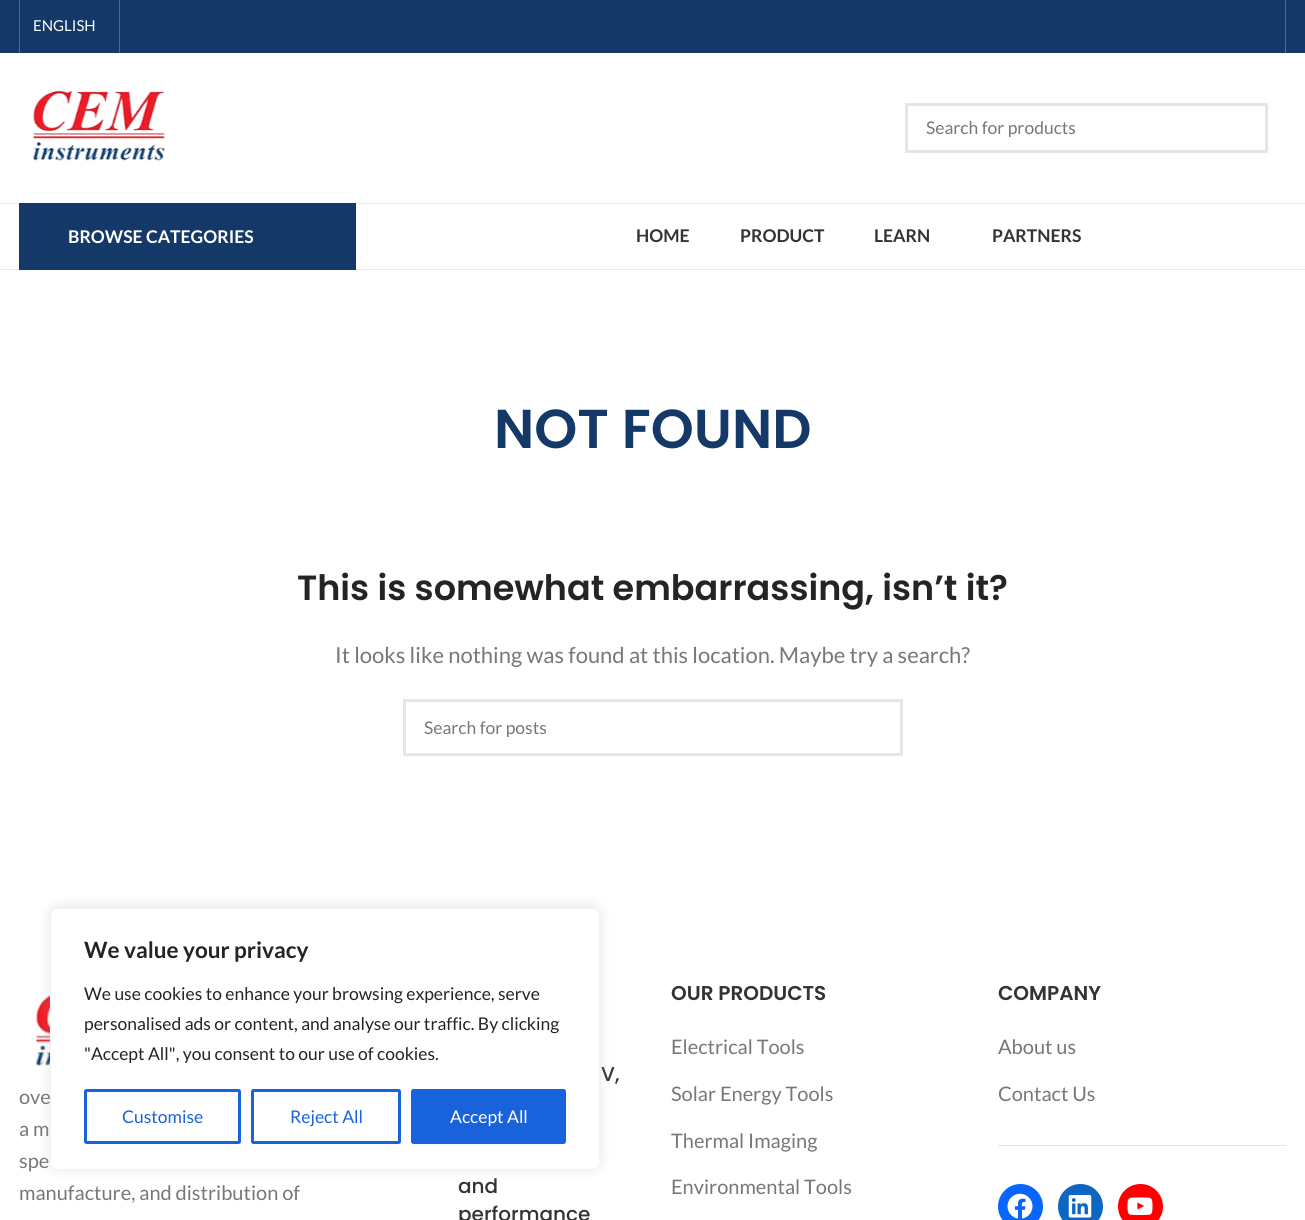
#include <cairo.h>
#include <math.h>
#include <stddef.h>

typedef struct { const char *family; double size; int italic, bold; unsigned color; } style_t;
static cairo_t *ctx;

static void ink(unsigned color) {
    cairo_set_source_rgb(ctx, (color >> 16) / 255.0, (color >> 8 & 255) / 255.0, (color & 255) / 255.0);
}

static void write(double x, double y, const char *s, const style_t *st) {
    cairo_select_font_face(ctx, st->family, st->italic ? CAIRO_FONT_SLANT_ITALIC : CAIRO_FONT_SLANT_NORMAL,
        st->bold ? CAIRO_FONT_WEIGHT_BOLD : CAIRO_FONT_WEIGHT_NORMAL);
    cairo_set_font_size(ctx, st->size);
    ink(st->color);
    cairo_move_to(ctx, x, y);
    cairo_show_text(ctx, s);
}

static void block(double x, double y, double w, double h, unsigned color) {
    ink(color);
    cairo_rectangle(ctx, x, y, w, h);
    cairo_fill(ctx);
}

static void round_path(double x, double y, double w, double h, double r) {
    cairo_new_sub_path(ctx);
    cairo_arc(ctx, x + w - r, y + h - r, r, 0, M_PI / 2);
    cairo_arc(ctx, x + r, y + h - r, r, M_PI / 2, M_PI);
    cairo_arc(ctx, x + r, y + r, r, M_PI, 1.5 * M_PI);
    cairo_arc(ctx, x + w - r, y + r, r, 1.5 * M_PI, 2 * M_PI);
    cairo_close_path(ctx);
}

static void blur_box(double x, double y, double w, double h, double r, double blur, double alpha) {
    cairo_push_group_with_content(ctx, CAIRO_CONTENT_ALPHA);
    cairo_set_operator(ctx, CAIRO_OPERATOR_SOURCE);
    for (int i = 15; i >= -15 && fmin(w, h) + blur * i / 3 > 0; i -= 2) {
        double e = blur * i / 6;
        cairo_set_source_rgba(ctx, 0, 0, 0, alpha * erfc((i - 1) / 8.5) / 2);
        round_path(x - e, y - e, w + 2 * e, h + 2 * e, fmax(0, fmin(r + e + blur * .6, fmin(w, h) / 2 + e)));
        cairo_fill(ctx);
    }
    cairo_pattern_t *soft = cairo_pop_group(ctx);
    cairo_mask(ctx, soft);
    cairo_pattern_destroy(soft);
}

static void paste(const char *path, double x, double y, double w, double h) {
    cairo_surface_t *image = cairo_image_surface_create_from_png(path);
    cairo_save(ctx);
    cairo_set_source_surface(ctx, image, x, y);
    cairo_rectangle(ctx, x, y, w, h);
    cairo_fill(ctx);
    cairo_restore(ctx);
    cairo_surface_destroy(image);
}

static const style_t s1 = {"Lato", 15, 0, 0, 0xffffff};
static const style_t s2 = {"Lato", 17.5, 0, 0, 0x777777};
static const style_t s3 = {"Lato", 17.5, 0, 1, 0xffffff};
static const style_t s4 = {"Lato", 17.5, 0, 1, 0x333333};
static const style_t s5 = {"Poppins SemiBold", 54.75, 0, 0, 0x143868};
static const style_t s6 = {"Poppins SemiBold", 35, 0, 0, 0x242424};
static const style_t s7 = {"Lato", 22, 0, 0, 0x777777};
static const style_t s8 = {"Poppins SemiBold", 20, 0, 0, 0x333333};
static const style_t s9 = {"Lato", 20, 0, 0, 0x777777};
static const style_t s10 = {"Poppins Medium", 20, 0, 0, 0x333333};
static const style_t s11 = {"Lato", 22.5, 0, 1, 0x242424};
static const style_t s12 = {"Lato", 17.5, 0, 0, 0x242424};
static const style_t s13 = {"Lato", 17.5, 0, 0, 0x1863dc};
static const style_t s14 = {"Lato", 17.5, 0, 0, 0xffffff};

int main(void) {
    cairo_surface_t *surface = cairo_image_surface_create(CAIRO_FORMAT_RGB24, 1305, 1220);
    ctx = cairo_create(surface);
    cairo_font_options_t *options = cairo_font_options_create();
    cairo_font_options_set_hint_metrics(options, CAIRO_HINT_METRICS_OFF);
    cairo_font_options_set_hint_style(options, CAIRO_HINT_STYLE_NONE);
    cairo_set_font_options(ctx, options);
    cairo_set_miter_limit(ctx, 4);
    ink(0xffffff);
    cairo_paint(ctx);
    block(0, 0, 1305, 53, 0x143868);
    block(19, 0, 1, 53, 0x4f6a8e);
    write(33, 31, "ENGLISH", &s1);
    block(119, 0, 1, 53, 0x4f6a8e);
    block(1285, 0, 1, 53, 0x4f6a8e);
    block(0, 203, 1305, 1, 0xe8e8e8);
    paste("pic1.png", 32, 90, 134, 71);
    cairo_rectangle(ctx, 906.5, 104.5, 360, 47);
    ink(0xe6e6e6);
    cairo_set_line_width(ctx, 3);
    cairo_stroke(ctx);
    write(926, 134, "Search for products", &s2);
    block(0, 269, 1305, 1, 0xe8e8e8);
    block(19, 203, 337, 67, 0x143868);
    write(68, 243, "BROWSE CATEGORIES", &s3);
    write(636, 242, "HOME", &s4);
    write(740, 242, "PRODUCT", &s4);
    write(874, 242, "LEARN", &s4);
    write(992, 242, "PARTNERS", &s4);
    write(494, 448, "NOT FOUND", &s5);
    write(297, 600, "This is somewhat embarrassing, isn’t it?", &s6);
    write(335, 663, "It looks like nothing was found at this location. Maybe try a search?", &s7);
    cairo_rectangle(ctx, 404.5, 700.5, 497, 54);
    ink(0xe6e6e6);
    cairo_stroke(ctx);
    write(424, 734, "Search for posts", &s2);
    write(671, 1000, "OUR PRODUCTS", &s8);
    write(671, 1054, "Electrical Tools", &s9);
    write(671, 1101, "Solar Energy Tools", &s9);
    write(671, 1148, "Thermal Imaging", &s9);
    write(671, 1194, "Environmental Tools", &s9);
    block(998, 1145, 288, 1, 0xe4e4e4);
    write(998, 1000, "COMPANY", &s8);
    write(998, 1054, "About us", &s9);
    write(998, 1101, "Contact Us", &s9);
    ink(0x0866ff);
    cairo_new_path(ctx);
    cairo_arc(ctx, 1020.5, 1206.5, 22.5, 0, 2 * M_PI);
    cairo_fill(ctx);
    paste("pic2.png", 1007, 1193, 26, 26);
    ink(0x0d66c2);
    cairo_arc(ctx, 1080.5, 1206.5, 22.5, 0, 2 * M_PI);
    cairo_fill(ctx);
    paste("pic3.png", 1068, 1195, 24, 23);
    ink(0xff0000);
    cairo_arc(ctx, 1140.5, 1206.5, 22.5, 0, 2 * M_PI);
    cairo_fill(ctx);
    paste("pic4.png", 1127, 1197, 26, 19);
    paste("pic5.png", 35, 994, 15, 73);
    write(19, 1104, "ove", &s9);
    write(19, 1136, "a m", &s9);
    write(19, 1168, "spe", &s9);
    write(19, 1200, "manufacture, and distribution of", &s9);
    write(601, 1081, "V,", &s10);
    write(458, 1193, "and", &s10);
    write(458, 1221, "performance", &s10);
    ink(0xacabab);
    blur_box(50, 906, 550, 263, 8, 6, 0.3);
    ink(0xffffff);
    round_path(50.5, 908.5, 549, 261, 7.5);
    cairo_fill_preserve(ctx);
    ink(0xf4f4f4);
    cairo_set_line_width(ctx, 1);
    cairo_stroke(ctx);
    write(84, 958, "We value your privacy", &s11);
    write(84, 1000, "We use cookies to enhance your browsing experience, serve", &s12);
    write(84, 1030, "personalised ads or content, and analyse our traffic. By clicking", &s12);
    write(84, 1060, "\"Accept All\", you consent to our use of cookies.", &s12);
    round_path(85.5, 1090.5, 154, 52, 1);
    ink(0x1863dc);
    cairo_set_line_width(ctx, 3);
    cairo_stroke(ctx);
    write(122, 1123, "Customise", &s13);
    round_path(252.5, 1090.5, 147, 52, 1);
    cairo_stroke(ctx);
    write(290, 1123, "Reject All", &s13);
    round_path(412.5, 1090.5, 152, 52, 1);
    cairo_fill_preserve(ctx);
    cairo_stroke(ctx);
    write(450, 1123, "Accept All", &s14);
    cairo_surface_write_to_png(surface, "screenshot.png");
    cairo_font_options_destroy(options);
    cairo_destroy(ctx);
    cairo_surface_destroy(surface);
    return 0;
}
